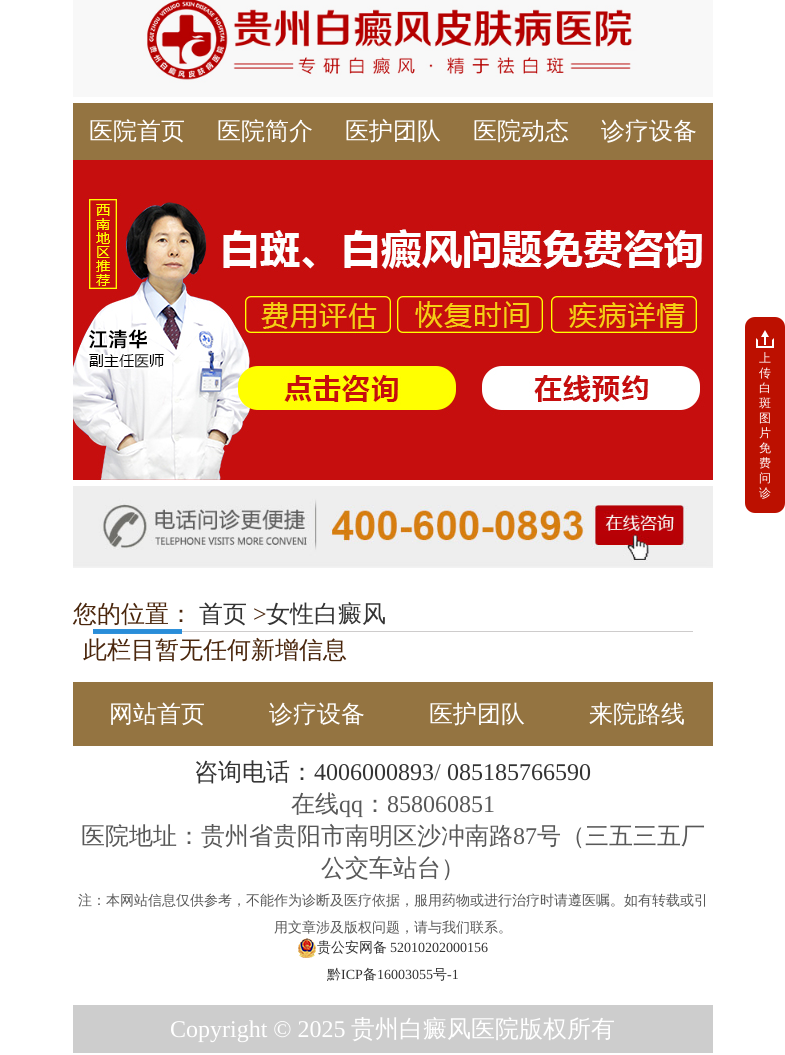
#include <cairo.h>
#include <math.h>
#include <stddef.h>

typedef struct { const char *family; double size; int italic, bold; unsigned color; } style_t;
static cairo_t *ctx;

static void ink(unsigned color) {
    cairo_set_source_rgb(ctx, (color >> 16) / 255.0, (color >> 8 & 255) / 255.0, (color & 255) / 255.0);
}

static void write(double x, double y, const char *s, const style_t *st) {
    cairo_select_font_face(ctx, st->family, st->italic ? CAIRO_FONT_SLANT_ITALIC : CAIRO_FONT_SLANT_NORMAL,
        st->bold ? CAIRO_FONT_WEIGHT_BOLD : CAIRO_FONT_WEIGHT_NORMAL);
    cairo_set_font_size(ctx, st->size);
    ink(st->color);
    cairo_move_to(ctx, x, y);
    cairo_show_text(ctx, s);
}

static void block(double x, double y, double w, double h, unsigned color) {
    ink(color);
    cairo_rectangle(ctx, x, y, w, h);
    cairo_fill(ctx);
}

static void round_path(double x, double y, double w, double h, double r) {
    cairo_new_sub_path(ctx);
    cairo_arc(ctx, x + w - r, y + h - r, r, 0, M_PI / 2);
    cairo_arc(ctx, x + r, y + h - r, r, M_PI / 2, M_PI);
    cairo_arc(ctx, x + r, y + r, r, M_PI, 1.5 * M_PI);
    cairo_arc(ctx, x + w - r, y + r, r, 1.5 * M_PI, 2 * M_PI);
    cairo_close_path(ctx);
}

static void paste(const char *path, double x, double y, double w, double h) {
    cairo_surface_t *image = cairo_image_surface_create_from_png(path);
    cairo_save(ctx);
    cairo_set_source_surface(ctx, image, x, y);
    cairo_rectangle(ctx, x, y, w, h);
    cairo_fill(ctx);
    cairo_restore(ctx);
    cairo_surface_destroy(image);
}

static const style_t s1 = {"WenQuanYi Zen Hei Medium", 24, 0, 0, 0xffffff};
static const style_t s2 = {"WenQuanYi Zen Hei Medium", 24, 0, 0, 0x4a260c};
static const style_t s3 = {"WenQuanYi Zen Hei Medium", 24, 0, 0, 0x333333};
static const style_t s4 = {"Liberation Serif", 24, 0, 0, 0x4a260c};
static const style_t s5 = {"Liberation Serif", 24, 0, 0, 0x333333};
static const style_t s6 = {"Liberation Serif", 24, 0, 0, 0x585858};
static const style_t s7 = {"WenQuanYi Zen Hei Medium", 24, 0, 0, 0x585858};
static const style_t s8 = {"WenQuanYi Zen Hei Medium", 14, 0, 0, 0x585858};
static const style_t s9 = {"WenQuanYi Zen Hei Medium", 14, 0, 0, 0x333333};
static const style_t s10 = {"Liberation Serif", 14, 0, 0, 0x333333};
static const style_t s11 = {"Liberation Serif", 24, 0, 0, 0xffffff};
static const style_t s12 = {"WenQuanYi Zen Hei Medium", 12, 0, 0, 0xffffff};

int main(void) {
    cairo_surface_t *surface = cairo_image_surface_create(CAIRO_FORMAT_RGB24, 785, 1055);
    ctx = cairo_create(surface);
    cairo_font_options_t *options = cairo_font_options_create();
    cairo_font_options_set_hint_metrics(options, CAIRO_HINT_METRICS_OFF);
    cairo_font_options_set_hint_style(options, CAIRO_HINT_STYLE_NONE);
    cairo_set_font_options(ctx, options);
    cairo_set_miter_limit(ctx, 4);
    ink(0xffffff);
    cairo_paint(ctx);
    paste("pic1.png", 73, 0, 640, 97);
    block(73, 103, 640, 57, 0x947441);
    write(89, 139, "医院首页", &s1);
    write(217, 139, "医院简介", &s1);
    write(345, 139, "医护团队", &s1);
    write(473, 139, "医院动态", &s1);
    write(601, 139, "诊疗设备", &s1);
    paste("pic2.png", 73, 160, 640, 320);
    paste("pic3.png", 73, 486, 640, 82);
    paste("pic4.png", 93, 629, 600, 5);
    write(73, 622, "您的位置：", &s2);
    write(199, 622, "首页", &s3);
    write(253, 622, ">", &s4);
    write(266, 622, "女性白癜风", &s3);
    write(83, 658, "此栏目暂无任何新增信息", &s2);
    block(73, 682, 640, 64, 0x947441);
    write(109, 722, "网站首页", &s1);
    write(269, 722, "诊疗设备", &s1);
    write(429, 722, "医护团队", &s1);
    write(589, 722, "来院路线", &s1);
    write(194, 780, "咨询电话：", &s3);
    write(314, 780, "4006000893", &s5);
    write(434, 780, "/", &s6);
    write(447, 780, "085185766590", &s5);
    write(291, 812, "在线", &s7);
    write(339, 812, "qq", &s6);
    write(363, 812, "：", &s7);
    write(387, 812, "858060851", &s6);
    write(81, 844, "医院地址：贵州省贵阳市南明区沙冲南路", &s7);
    write(513, 844, "87", &s6);
    write(537, 844, "号（三五三五厂", &s7);
    write(321, 876, "公交车站台）", &s7);
    write(78, 905, "注：本网站信息仅供参考，不能作为诊断及医疗依据，服用药物或进行治疗时请遵医嘱。如有转载或引", &s8);
    write(274, 932, "用文章涉及版权问题，请与我们联系。", &s8);
    paste("pic5.png", 298, 938, 18, 20);
    write(317, 952, "贵公安网备", &s9);
    write(390, 952, "52010202000156", &s10);
    write(327, 979, "黔", &s9);
    write(341, 979, "ICP", &s10);
    write(363, 979, "备", &s9);
    write(377, 979, "16003055", &s10);
    write(433, 979, "号", &s9);
    write(447, 979, "-1", &s10);
    block(73, 1005, 640, 48, 0xcdcdcd);
    write(170, 1037, "Copyright © 2025", &s11);
    write(351, 1037, "贵州白癜风医院版权所有", &s1);
    ink(0xbc1000);
    round_path(745, 317, 40, 196, 10);
    cairo_fill(ctx);
    ink(0xffffff);
    cairo_new_path(ctx);
    cairo_move_to(ctx, 774, 338);
    cairo_line_to(ctx, 774, 348);
    cairo_line_to(ctx, 772, 346);
    cairo_line_to(ctx, 772, 340);
    cairo_close_path(ctx);
    cairo_fill(ctx);
    block(756, 346, 18, 2, 0xffffff);
    cairo_new_path(ctx);
    cairo_move_to(ctx, 756, 348);
    cairo_line_to(ctx, 756, 338);
    cairo_line_to(ctx, 758, 340);
    cairo_line_to(ctx, 758, 346);
    cairo_close_path(ctx);
    cairo_move_to(ctx, 769, 337);
    cairo_line_to(ctx, 761, 337);
    cairo_line_to(ctx, 765, 330);
    cairo_close_path(ctx);
    cairo_fill(ctx);
    block(764, 337, 2, 8, 0xffffff);
    write(759, 362, "上", &s12);
    write(759, 377, "传", &s12);
    write(759, 392, "白", &s12);
    write(759, 407, "斑", &s12);
    write(759, 422, "图", &s12);
    write(759, 437, "片", &s12);
    write(759, 452, "免", &s12);
    write(759, 467, "费", &s12);
    write(759, 482, "问", &s12);
    write(759, 497, "诊", &s12);
    cairo_surface_write_to_png(surface, "screenshot.png");
    cairo_font_options_destroy(options);
    cairo_destroy(ctx);
    cairo_surface_destroy(surface);
    return 0;
}
